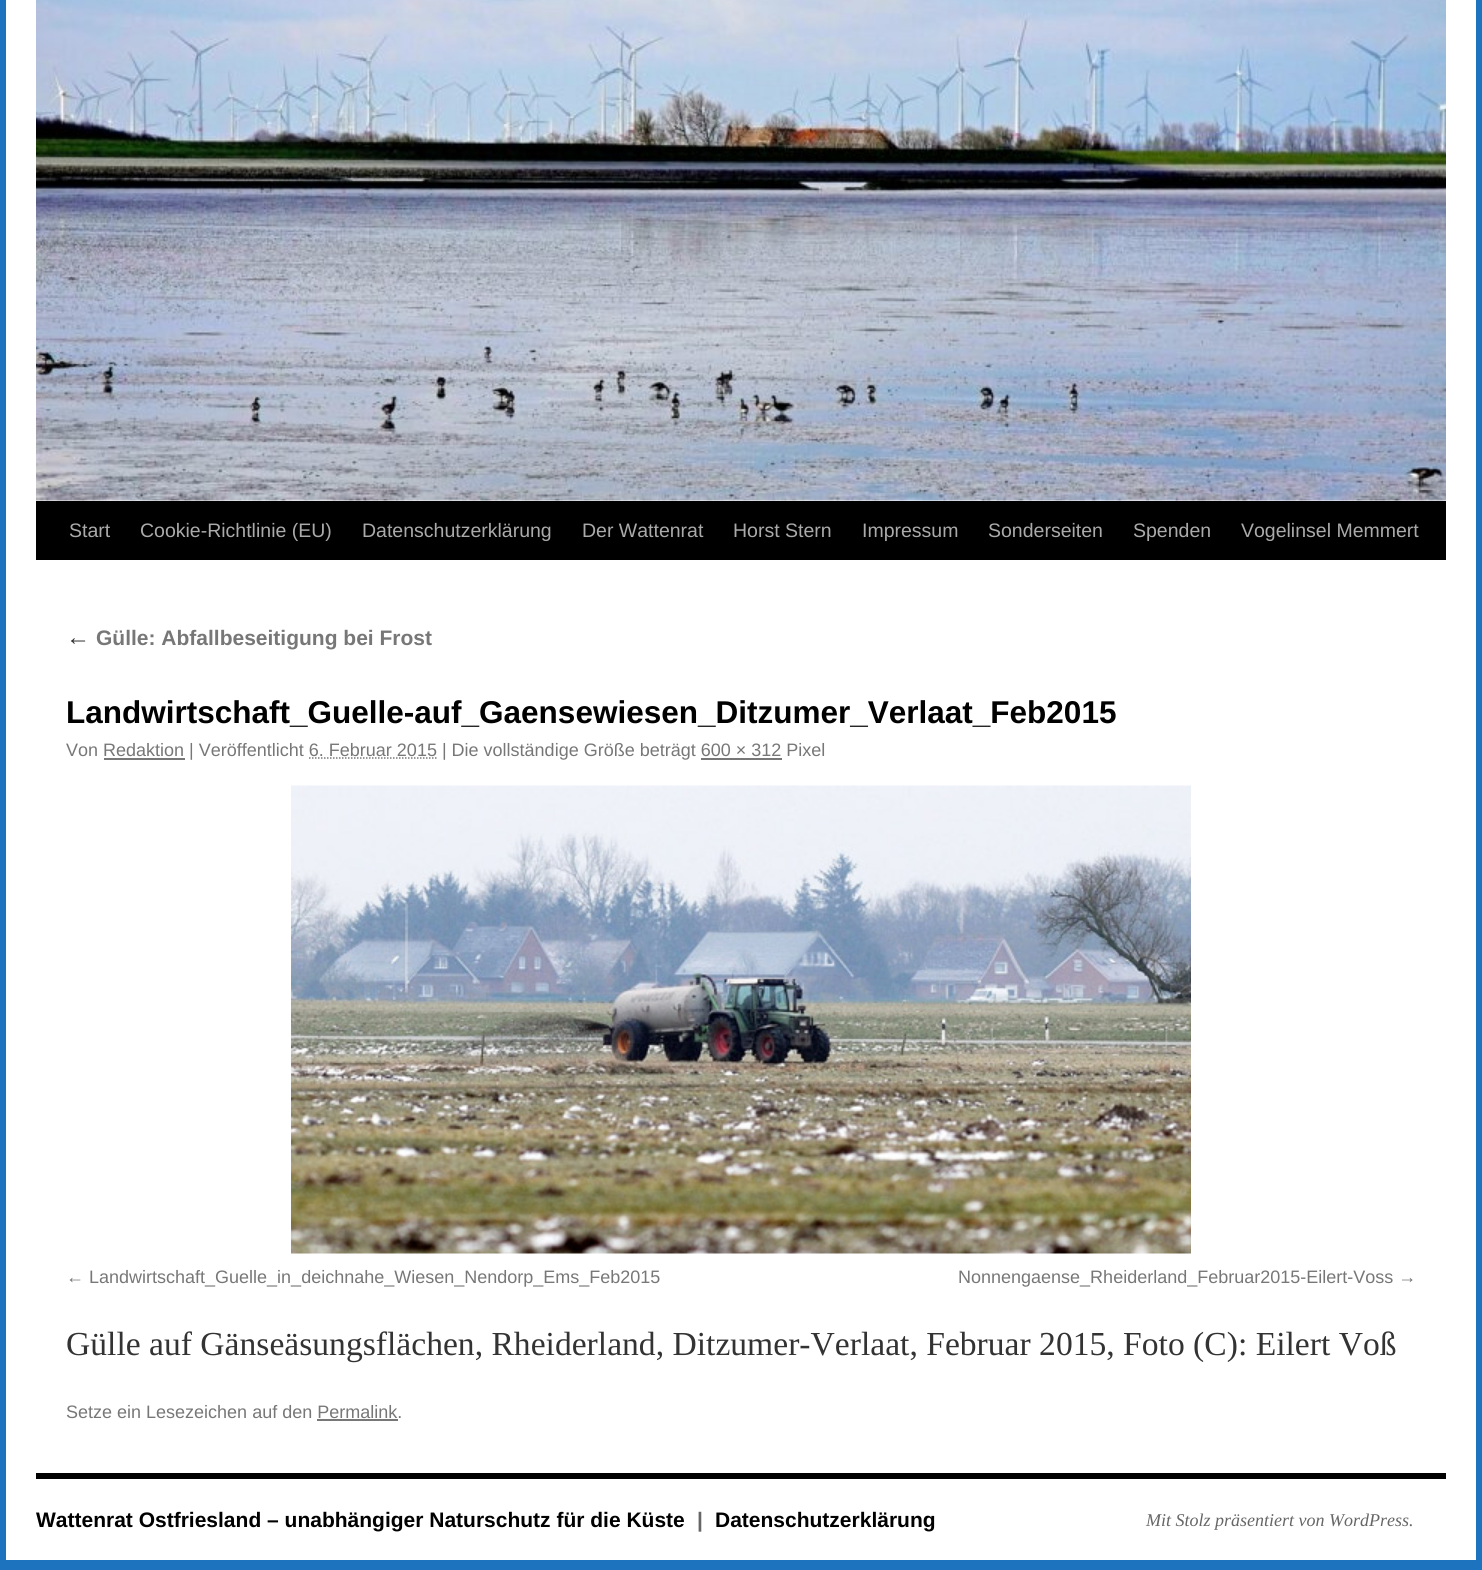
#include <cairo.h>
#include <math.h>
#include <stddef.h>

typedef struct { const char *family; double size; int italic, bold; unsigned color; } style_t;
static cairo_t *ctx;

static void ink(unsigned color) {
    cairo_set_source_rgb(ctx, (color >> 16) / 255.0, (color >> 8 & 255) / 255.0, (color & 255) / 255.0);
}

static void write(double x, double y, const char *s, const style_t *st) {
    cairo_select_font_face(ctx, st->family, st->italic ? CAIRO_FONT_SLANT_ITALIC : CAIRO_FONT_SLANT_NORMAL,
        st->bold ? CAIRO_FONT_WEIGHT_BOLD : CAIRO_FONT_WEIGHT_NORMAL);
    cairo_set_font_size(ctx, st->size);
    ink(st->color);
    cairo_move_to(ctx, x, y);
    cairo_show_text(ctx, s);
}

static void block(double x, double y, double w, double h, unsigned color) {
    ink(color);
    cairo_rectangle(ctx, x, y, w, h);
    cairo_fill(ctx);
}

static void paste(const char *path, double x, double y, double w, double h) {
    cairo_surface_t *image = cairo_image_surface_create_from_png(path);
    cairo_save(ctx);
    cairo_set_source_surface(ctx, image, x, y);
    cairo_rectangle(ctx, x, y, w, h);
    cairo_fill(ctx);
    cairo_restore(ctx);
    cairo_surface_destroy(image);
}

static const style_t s1 = {"Liberation Sans", 19.5, 0, 0, 0xaaaaaa};
static const style_t s2 = {"Liberation Serif", 24, 1, 0, 0x333333};
static const style_t s3 = {"Liberation Sans", 21, 0, 1, 0x777777};
static const style_t s4 = {"Liberation Sans", 31.5, 0, 1, 0x000000};
static const style_t s5 = {"Liberation Sans", 18, 0, 0, 0x777777};
static const style_t s6 = {"Liberation Serif", 33.6, 0, 0, 0x333333};
static const style_t s7 = {"Liberation Sans", 21, 0, 1, 0x000000};
static const style_t s8 = {"Liberation Sans", 21, 0, 1, 0x666666};
static const style_t s9 = {"Liberation Serif", 18, 1, 0, 0x666666};

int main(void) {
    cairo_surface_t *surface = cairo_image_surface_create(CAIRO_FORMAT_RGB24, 1482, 1570);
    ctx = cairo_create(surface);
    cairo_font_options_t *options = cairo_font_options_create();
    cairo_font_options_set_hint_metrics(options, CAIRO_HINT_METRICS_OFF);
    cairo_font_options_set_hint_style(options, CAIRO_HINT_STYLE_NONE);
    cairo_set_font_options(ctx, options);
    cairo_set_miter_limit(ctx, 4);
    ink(0x1e73be);
    cairo_paint(ctx);
    block(6, 0, 1470, 1560, 0xffffff);
    block(36, 501, 1410, 59, 0x000000);
    paste("pic1.png", 36, 0, 1410, 501);
    write(69, 537, "Start", &s1);
    write(140, 537, "Cookie-Richtlinie (EU)", &s1);
    write(362, 537, "Datenschutzerklärung", &s1);
    write(582, 537, "Der Wattenrat", &s1);
    write(733, 537, "Horst Stern", &s1);
    write(862, 537, "Impressum", &s1);
    write(988, 537, "Sonderseiten", &s1);
    write(1133, 537, "Spenden", &s1);
    write(1241, 537, "Vogelinsel Memmert", &s1);
    write(66, 645, "←", &s2);
    write(96, 645, "Gülle: Abfallbeseitigung bei Frost", &s3);
    write(66, 723, "Landwirtschaft_Guelle-auf_Gaensewiesen_Ditzumer_Verlaat_Feb2015", &s4);
    write(66, 756, "Von Redaktion | Veröffentlicht 6. Februar 2015 | Die vollständige Größe beträgt 600 × 312 Pixel", &s5);
    block(104, 758, 81, 2, 0x777777);
    cairo_new_path(ctx);
    cairo_move_to(ctx, 309, 758);
    cairo_line_to(ctx, 437, 758);
    cairo_set_line_width(ctx, 1.5);
    cairo_set_dash(ctx, (double[]){1.5, 1.5}, 2, 0);
    cairo_stroke(ctx);
    block(701, 758, 81, 2, 0x777777);
    paste("pic2.png", 291, 785, 900, 469);
    write(66, 1283, "← Landwirtschaft_Guelle_in_deichnahe_Wiesen_Nendorp_Ems_Feb2015", &s5);
    write(958, 1283, "Nonnengaense_Rheiderland_Februar2015-Eilert-Voss →", &s5);
    write(66, 1355, "Gülle auf Gänseäsungsflächen, Rheiderland, Ditzumer-Verlaat, Februar 2015, Foto (C): Eilert Voß", &s6);
    write(66, 1418, "Setze ein Lesezeichen auf den Permalink.", &s5);
    block(317, 1419, 81, 2, 0x777777);
    block(36, 1473, 1410, 6, 0x000000);
    write(36, 1527, "Wattenrat Ostfriesland – unabhängiger Naturschutz für die Küste", &s7);
    write(697, 1527, "|", &s8);
    write(715, 1527, "Datenschutzerklärung", &s7);
    write(1146, 1526, "Mit Stolz präsentiert von WordPress.", &s9);
    cairo_surface_write_to_png(surface, "screenshot.png");
    cairo_font_options_destroy(options);
    cairo_destroy(ctx);
    cairo_surface_destroy(surface);
    return 0;
}
